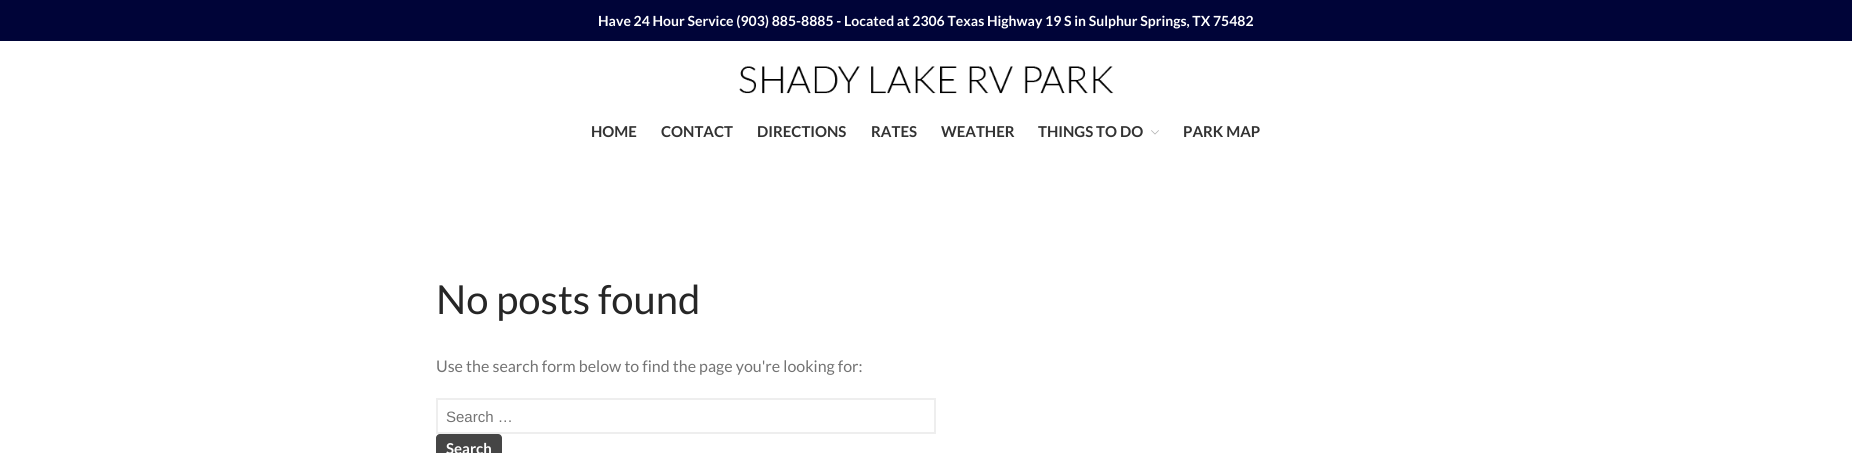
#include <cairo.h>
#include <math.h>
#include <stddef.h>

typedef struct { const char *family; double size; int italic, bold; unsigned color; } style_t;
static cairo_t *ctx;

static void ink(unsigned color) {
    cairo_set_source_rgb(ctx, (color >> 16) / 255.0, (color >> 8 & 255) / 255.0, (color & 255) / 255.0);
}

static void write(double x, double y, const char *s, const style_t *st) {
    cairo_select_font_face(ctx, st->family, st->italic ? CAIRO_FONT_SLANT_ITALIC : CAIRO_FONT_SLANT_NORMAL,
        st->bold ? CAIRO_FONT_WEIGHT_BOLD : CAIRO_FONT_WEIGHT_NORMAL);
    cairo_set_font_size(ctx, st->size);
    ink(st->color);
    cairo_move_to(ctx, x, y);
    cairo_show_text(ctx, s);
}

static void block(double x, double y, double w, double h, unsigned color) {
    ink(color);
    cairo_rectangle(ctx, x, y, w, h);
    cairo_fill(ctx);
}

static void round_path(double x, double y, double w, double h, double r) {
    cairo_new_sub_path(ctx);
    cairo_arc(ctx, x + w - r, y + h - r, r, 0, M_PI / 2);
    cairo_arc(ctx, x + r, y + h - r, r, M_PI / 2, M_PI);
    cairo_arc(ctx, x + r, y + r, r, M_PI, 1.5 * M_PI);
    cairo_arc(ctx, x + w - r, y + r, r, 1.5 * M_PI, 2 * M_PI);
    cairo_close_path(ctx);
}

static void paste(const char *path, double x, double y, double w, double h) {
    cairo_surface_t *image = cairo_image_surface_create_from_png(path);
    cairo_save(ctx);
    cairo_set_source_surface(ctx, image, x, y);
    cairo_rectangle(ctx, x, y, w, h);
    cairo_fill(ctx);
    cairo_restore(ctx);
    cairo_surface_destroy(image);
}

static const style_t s1 = {"Lato", 14, 0, 1, 0xffffff};
static const style_t s2 = {"Lato", 15, 0, 1, 0x323232};
static const style_t s3 = {"Lato", 40, 0, 0, 0x262626};
static const style_t s4 = {"Lato", 16, 0, 0, 0x737373};
static const style_t s5 = {"Liberation Sans", 15, 0, 0, 0x737373};
static const style_t s6 = {"Lato", 15, 0, 1, 0xffffff};

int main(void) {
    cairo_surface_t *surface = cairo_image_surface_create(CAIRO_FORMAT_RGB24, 1852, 453);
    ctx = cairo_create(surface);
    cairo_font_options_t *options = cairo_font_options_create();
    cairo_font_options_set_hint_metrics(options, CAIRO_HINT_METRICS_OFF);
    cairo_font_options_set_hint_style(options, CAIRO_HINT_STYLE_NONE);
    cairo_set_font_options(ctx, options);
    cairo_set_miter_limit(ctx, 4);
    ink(0xffffff);
    cairo_paint(ctx);
    block(0, 0, 1852, 41, 0x000438);
    write(598, 26, "Have 24 Hour Service (903) 885-8885 - Located at 2306 Texas Highway 19 S in Sulphur Springs, TX 75482", &s1);
    paste("pic1.png", 739, 66, 375, 28);
    write(591, 137, "HOME", &s2);
    write(661, 137, "CONTACT", &s2);
    write(757, 137, "DIRECTIONS", &s2);
    write(871, 137, "RATES", &s2);
    write(941, 137, "WEATHER", &s2);
    write(1038, 137, "THINGS TO DO", &s2);
    paste("pic2.png", 1151, 130, 8, 5);
    write(1183, 137, "PARK MAP", &s2);
    write(436, 314, "No posts found", &s3);
    write(436, 372, "Use the search form below to find the page you're looking for:", &s4);
    cairo_rectangle(ctx, 437, 399, 498, 34);
    ink(0xeeeeee);
    cairo_stroke(ctx);
    write(446, 422, "Search …", &s5);
    ink(0x454545);
    round_path(436, 434, 66, 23, 4);
    cairo_fill(ctx);
    write(446, 454, "Search", &s6);
    cairo_surface_write_to_png(surface, "screenshot.png");
    cairo_font_options_destroy(options);
    cairo_destroy(ctx);
    cairo_surface_destroy(surface);
    return 0;
}
